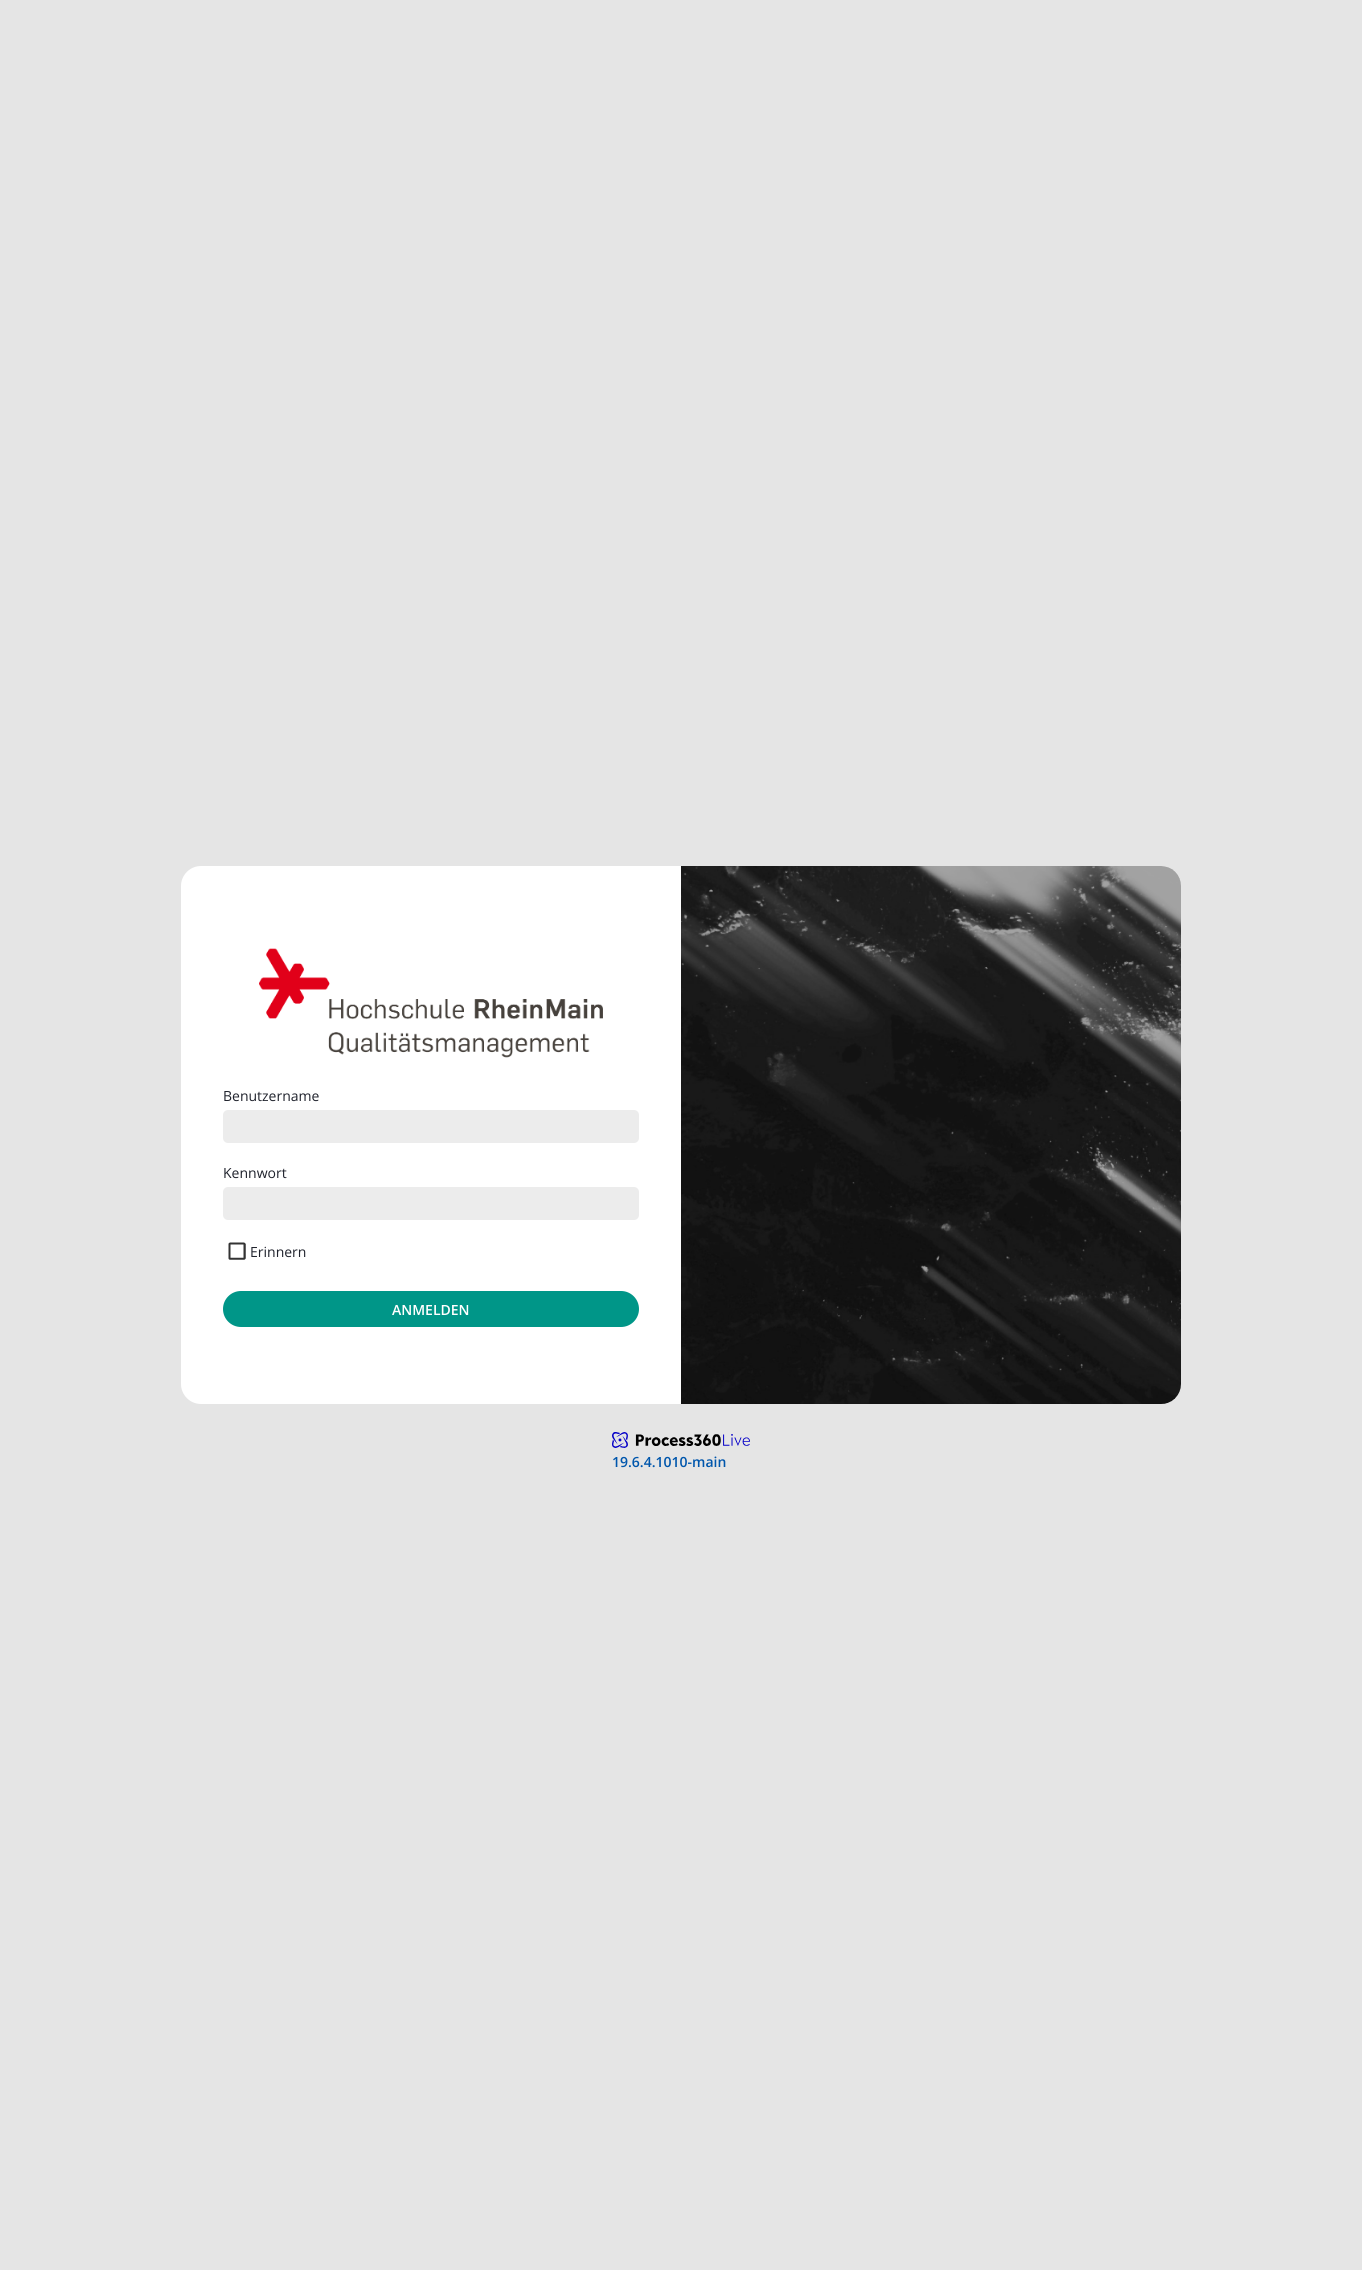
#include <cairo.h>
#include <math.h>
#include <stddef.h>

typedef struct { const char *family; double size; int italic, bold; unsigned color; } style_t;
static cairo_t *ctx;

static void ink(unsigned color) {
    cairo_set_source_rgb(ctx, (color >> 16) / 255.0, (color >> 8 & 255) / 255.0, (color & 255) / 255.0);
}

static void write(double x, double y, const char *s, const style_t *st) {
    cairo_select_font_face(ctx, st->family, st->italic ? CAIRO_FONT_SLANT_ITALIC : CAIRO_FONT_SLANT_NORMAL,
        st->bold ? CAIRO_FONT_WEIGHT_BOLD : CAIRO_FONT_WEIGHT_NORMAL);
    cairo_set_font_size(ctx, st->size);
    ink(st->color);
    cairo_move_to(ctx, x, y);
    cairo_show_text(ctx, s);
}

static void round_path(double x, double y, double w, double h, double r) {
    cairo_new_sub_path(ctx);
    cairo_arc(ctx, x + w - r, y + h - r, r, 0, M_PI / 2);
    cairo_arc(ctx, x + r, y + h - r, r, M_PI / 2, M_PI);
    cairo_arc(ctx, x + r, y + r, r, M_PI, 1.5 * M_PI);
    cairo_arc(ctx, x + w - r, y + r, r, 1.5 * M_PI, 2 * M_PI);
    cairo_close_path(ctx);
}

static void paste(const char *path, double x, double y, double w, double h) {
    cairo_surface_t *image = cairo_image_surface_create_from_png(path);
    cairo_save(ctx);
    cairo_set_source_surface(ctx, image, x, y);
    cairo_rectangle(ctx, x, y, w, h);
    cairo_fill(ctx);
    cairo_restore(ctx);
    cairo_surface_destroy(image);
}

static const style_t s1 = {"Open Sans", 14, 0, 0, 0x20232d};
static const style_t s2 = {"Open Sans SemiBold", 14, 0, 0, 0xffffff};
static const style_t s3 = {"Open Sans SemiBold", 14, 0, 0, 0x0056ac};

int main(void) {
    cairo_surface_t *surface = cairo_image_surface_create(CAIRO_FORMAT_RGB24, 1362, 2270);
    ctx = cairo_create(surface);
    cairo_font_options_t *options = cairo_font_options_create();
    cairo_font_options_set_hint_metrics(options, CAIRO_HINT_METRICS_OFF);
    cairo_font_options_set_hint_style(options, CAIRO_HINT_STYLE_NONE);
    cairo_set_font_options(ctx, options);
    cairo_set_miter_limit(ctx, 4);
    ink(0xe5e5e5);
    cairo_paint(ctx);
    ink(0xffffff);
    cairo_new_path(ctx);
    cairo_move_to(ctx, 201, 866);
    cairo_line_to(ctx, 681, 866);
    cairo_line_to(ctx, 681, 1404);
    cairo_line_to(ctx, 201, 1404);
    cairo_curve_to(ctx, 190, 1404, 181, 1395, 181, 1384);
    cairo_line_to(ctx, 181, 886);
    cairo_curve_to(ctx, 181, 875, 190, 866, 201, 866);
    cairo_close_path(ctx);
    cairo_fill(ctx);
    paste("pic1.png", 259, 948, 344, 110);
    write(223, 1101, "Benutzername", &s1);
    ink(0xececec);
    round_path(223, 1110, 416, 33, 5);
    cairo_fill(ctx);
    write(223, 1178, "Kennwort", &s1);
    ink(0xececec);
    round_path(223, 1187, 416, 33, 5);
    cairo_fill(ctx);
    paste("pic2.png", 228, 1242, 18, 18);
    write(250, 1257, "Erinnern", &s1);
    ink(0x009688);
    round_path(223, 1291, 416, 36, 18);
    cairo_fill(ctx);
    write(392, 1315, "ANMELDEN", &s2);
    paste("pic3.png", 681, 866, 500, 538);
    paste("pic4.png", 612, 1432, 138, 16);
    write(612, 1467, "19.6.4.1010-main", &s3);
    cairo_surface_write_to_png(surface, "screenshot.png");
    cairo_font_options_destroy(options);
    cairo_destroy(ctx);
    cairo_surface_destroy(surface);
    return 0;
}
